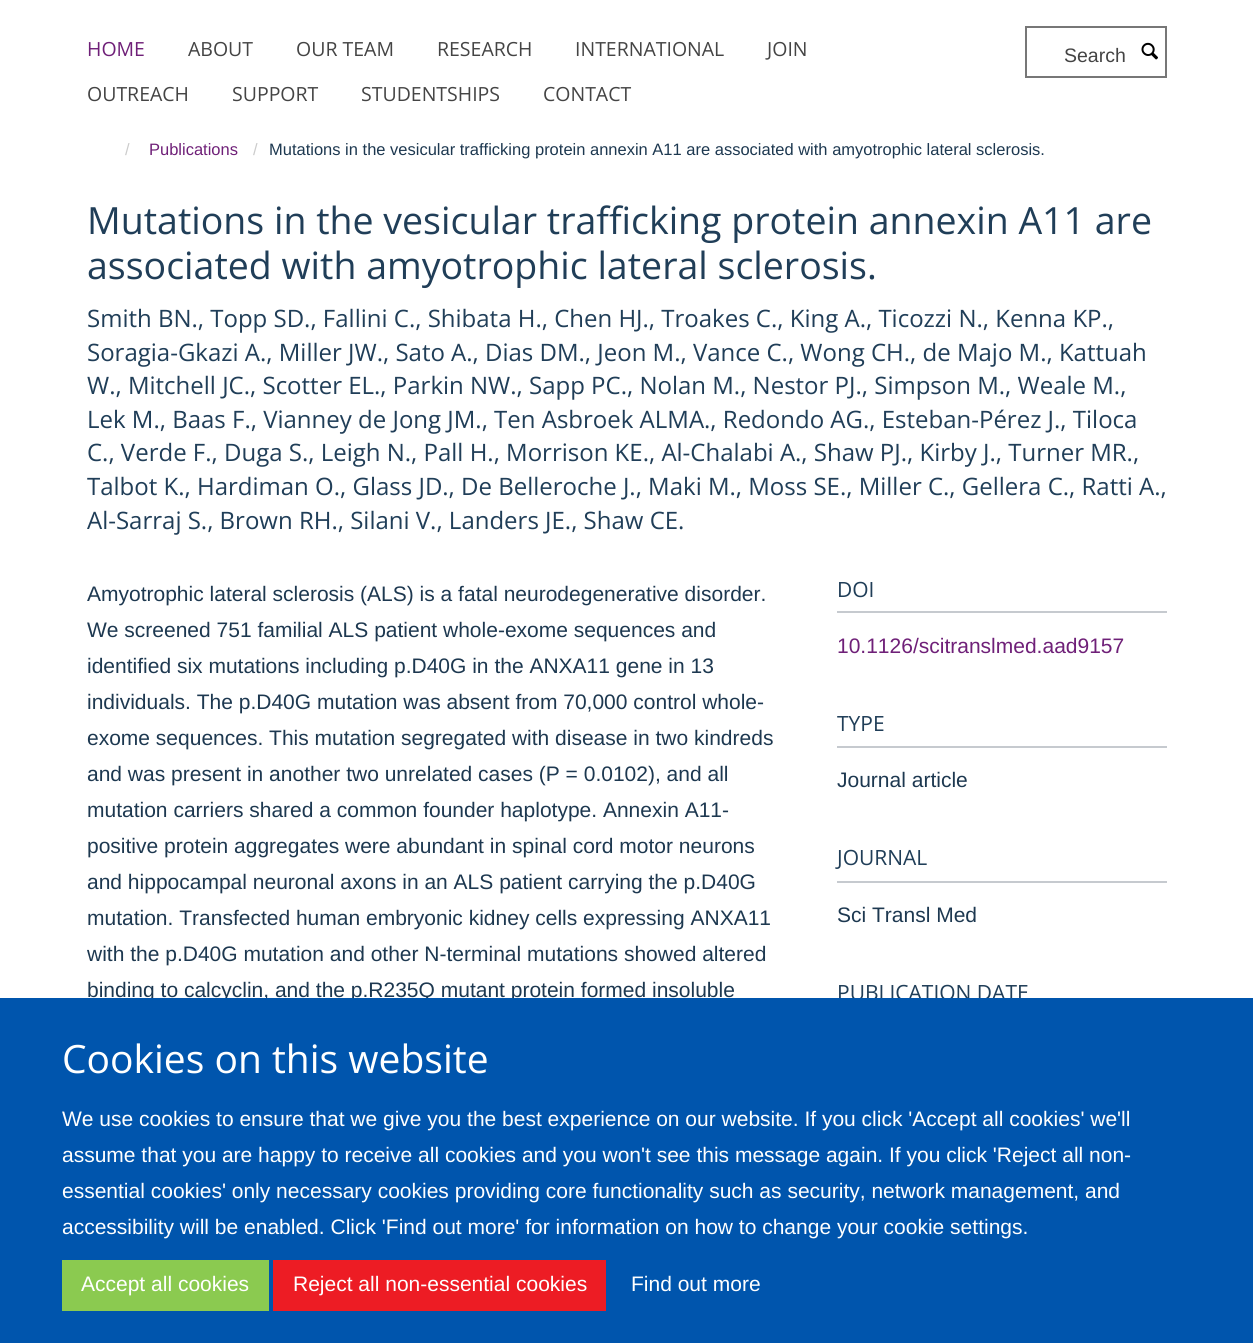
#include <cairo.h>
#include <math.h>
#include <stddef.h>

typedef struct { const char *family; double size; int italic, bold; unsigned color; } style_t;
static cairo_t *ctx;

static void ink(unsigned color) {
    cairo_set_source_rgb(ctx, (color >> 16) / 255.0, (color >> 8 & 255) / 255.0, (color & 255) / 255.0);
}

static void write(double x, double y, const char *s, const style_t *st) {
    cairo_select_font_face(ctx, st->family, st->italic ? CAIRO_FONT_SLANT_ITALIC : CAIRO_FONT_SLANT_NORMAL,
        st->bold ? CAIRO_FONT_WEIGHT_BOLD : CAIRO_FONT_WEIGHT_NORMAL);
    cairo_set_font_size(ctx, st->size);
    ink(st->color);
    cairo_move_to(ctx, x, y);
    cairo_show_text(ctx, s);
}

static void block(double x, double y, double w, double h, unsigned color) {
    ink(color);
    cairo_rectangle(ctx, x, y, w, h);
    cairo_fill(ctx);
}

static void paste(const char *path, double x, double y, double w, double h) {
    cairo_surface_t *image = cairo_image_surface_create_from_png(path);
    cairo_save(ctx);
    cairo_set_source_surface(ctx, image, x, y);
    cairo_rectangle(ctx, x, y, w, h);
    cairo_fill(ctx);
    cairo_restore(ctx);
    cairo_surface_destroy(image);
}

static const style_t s1 = {"Open Sans", 19.5, 0, 0, 0x6f2078};
static const style_t s2 = {"Open Sans", 19.5, 0, 0, 0x444444};
static const style_t s3 = {"Liberation Sans", 19.5, 0, 0, 0x444444};
static const style_t s4 = {"Liberation Sans", 16.5, 0, 0, 0xcccccc};
static const style_t s5 = {"Liberation Sans", 16.5, 0, 0, 0x6f2078};
static const style_t s6 = {"Liberation Sans", 16.5, 0, 0, 0x1d3850};
static const style_t s7 = {"Open Sans", 37.5, 0, 0, 0x203e58};
static const style_t s8 = {"Open Sans", 24, 0, 0, 0x203e58};
static const style_t s9 = {"Liberation Sans", 21, 0, 0, 0x1d3850};
static const style_t s10 = {"Open Sans", 21, 0, 0, 0x203e58};
static const style_t s11 = {"Liberation Sans", 21, 0, 0, 0x6f2078};
static const style_t s12 = {"Open Sans", 39, 0, 0, 0xffffff};
static const style_t s13 = {"Liberation Sans", 21, 0, 0, 0xffffff};

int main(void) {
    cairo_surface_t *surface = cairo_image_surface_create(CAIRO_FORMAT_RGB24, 1253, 1343);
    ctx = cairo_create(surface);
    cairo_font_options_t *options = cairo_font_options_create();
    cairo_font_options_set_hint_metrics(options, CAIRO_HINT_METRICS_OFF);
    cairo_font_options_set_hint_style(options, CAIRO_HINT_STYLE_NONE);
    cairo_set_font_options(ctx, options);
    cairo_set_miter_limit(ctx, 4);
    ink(0xffffff);
    cairo_paint(ctx);
    write(87, 56, "HOME", &s1);
    write(188, 56, "ABOUT", &s2);
    write(296, 56, "OUR TEAM", &s2);
    write(437, 56, "RESEARCH", &s2);
    write(575, 56, "INTERNATIONAL", &s2);
    write(767, 56, "JOIN", &s2);
    write(87, 101, "OUTREACH", &s2);
    write(232, 101, "SUPPORT", &s2);
    write(361, 101, "STUDENTSHIPS", &s2);
    write(543, 101, "CONTACT", &s2);
    cairo_rectangle(ctx, 1026, 27, 140, 50);
    ink(0x777777);
    cairo_stroke(ctx);
    write(1064, 62, "Search", &s3);
    paste("pic1.png", 1141, 42, 17, 18);
    write(125, 155, "/", &s4);
    write(149, 155, "Publications", &s5);
    write(253, 155, "/", &s4);
    write(269, 155, "Mutations in the vesicular trafficking protein annexin A11 are associated with amyotrophic lateral sclerosis.", &s6);
    write(87, 234, "Mutations in the vesicular trafficking protein annexin A11 are", &s7);
    write(87, 279, "associated with amyotrophic lateral sclerosis.", &s7);
    write(87, 327, "Smith BN., Topp SD., Fallini C., Shibata H., Chen HJ., Troakes C., King A., Ticozzi N., Kenna KP.,", &s8);
    write(87, 361, "Soragia-Gkazi A., Miller JW., Sato A., Dias DM., Jeon M., Vance C., Wong CH., de Majo M., Kattuah", &s8);
    write(87, 394, "W., Mitchell JC., Scotter EL., Parkin NW., Sapp PC., Nolan M., Nestor PJ., Simpson M., Weale M.,", &s8);
    write(87, 428, "Lek M., Baas F., Vianney de Jong JM., Ten Asbroek ALMA., Redondo AG., Esteban-Pérez J., Tiloca", &s8);
    write(87, 461, "C., Verde F., Duga S., Leigh N., Pall H., Morrison KE., Al-Chalabi A., Shaw PJ., Kirby J., Turner MR.,", &s8);
    write(87, 495, "Talbot K., Hardiman O., Glass JD., De Belleroche J., Maki M., Moss SE., Miller C., Gellera C., Ratti A.,", &s8);
    write(87, 529, "Al-Sarraj S., Brown RH., Silani V., Landers JE., Shaw CE.", &s8);
    write(87, 601, "Amyotrophic lateral sclerosis (ALS) is a fatal neurodegenerative disorder.", &s9);
    write(87, 637, "We screened 751 familial ALS patient whole-exome sequences and", &s9);
    write(87, 673, "identified six mutations including p.D40G in the ANXA11 gene in 13", &s9);
    write(87, 709, "individuals. The p.D40G mutation was absent from 70,000 control whole-", &s9);
    write(87, 745, "exome sequences. This mutation segregated with disease in two kindreds", &s9);
    write(87, 781, "and was present in another two unrelated cases (P = 0.0102), and all", &s9);
    write(87, 817, "mutation carriers shared a common founder haplotype. Annexin A11-", &s9);
    write(87, 853, "positive protein aggregates were abundant in spinal cord motor neurons", &s9);
    write(87, 889, "and hippocampal neuronal axons in an ALS patient carrying the p.D40G", &s9);
    write(87, 925, "mutation. Transfected human embryonic kidney cells expressing ANXA11", &s9);
    write(87, 961, "with the p.D40G mutation and other N-terminal mutations showed altered", &s9);
    write(87, 997, "binding to calcyclin, and the p.R235Q mutant protein formed insoluble", &s9);
    block(837, 611, 330, 2, 0xc6cacf);
    write(837, 597, "DOI", &s10);
    write(837, 653, "10.1126/scitranslmed.aad9157", &s11);
    block(837, 746, 330, 2, 0xc6cacf);
    write(837, 731, "TYPE", &s10);
    write(837, 787, "Journal article", &s9);
    block(837, 881, 330, 2, 0xc6cacf);
    write(837, 865, "JOURNAL", &s10);
    write(837, 922, "Sci Transl Med", &s9);
    write(837, 1000, "PUBLICATION DATE", &s10);
    block(0, 998, 1253, 345, 0x0055ad);
    write(62, 1073, "Cookies on this website", &s12);
    write(62, 1126, "We use cookies to ensure that we give you the best experience on our website. If you click 'Accept all cookies' we'll", &s13);
    write(62, 1162, "assume that you are happy to receive all cookies and you won't see this message again. If you click 'Reject all non-", &s13);
    write(62, 1198, "essential cookies' only necessary cookies providing core functionality such as security, network management, and", &s13);
    write(62, 1234, "accessibility will be enabled. Click 'Find out more' for information on how to change your cookie settings.", &s13);
    block(62, 1260, 207, 51, 0x8bca50);
    write(81, 1291, "Accept all cookies", &s13);
    block(273, 1260, 333, 51, 0xed1c24);
    write(293, 1291, "Reject all non-essential cookies", &s13);
    write(631, 1291, "Find out more", &s13);
    cairo_surface_write_to_png(surface, "screenshot.png");
    cairo_font_options_destroy(options);
    cairo_destroy(ctx);
    cairo_surface_destroy(surface);
    return 0;
}
